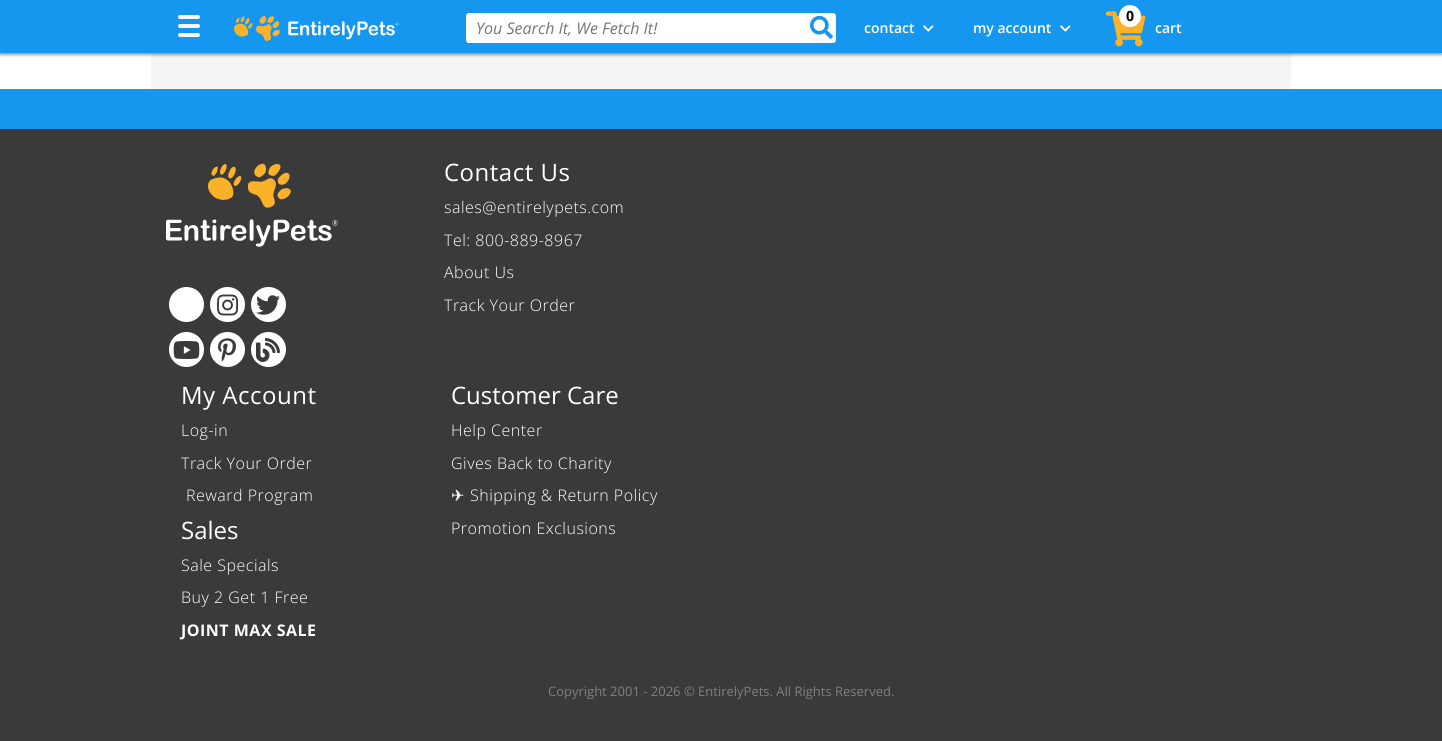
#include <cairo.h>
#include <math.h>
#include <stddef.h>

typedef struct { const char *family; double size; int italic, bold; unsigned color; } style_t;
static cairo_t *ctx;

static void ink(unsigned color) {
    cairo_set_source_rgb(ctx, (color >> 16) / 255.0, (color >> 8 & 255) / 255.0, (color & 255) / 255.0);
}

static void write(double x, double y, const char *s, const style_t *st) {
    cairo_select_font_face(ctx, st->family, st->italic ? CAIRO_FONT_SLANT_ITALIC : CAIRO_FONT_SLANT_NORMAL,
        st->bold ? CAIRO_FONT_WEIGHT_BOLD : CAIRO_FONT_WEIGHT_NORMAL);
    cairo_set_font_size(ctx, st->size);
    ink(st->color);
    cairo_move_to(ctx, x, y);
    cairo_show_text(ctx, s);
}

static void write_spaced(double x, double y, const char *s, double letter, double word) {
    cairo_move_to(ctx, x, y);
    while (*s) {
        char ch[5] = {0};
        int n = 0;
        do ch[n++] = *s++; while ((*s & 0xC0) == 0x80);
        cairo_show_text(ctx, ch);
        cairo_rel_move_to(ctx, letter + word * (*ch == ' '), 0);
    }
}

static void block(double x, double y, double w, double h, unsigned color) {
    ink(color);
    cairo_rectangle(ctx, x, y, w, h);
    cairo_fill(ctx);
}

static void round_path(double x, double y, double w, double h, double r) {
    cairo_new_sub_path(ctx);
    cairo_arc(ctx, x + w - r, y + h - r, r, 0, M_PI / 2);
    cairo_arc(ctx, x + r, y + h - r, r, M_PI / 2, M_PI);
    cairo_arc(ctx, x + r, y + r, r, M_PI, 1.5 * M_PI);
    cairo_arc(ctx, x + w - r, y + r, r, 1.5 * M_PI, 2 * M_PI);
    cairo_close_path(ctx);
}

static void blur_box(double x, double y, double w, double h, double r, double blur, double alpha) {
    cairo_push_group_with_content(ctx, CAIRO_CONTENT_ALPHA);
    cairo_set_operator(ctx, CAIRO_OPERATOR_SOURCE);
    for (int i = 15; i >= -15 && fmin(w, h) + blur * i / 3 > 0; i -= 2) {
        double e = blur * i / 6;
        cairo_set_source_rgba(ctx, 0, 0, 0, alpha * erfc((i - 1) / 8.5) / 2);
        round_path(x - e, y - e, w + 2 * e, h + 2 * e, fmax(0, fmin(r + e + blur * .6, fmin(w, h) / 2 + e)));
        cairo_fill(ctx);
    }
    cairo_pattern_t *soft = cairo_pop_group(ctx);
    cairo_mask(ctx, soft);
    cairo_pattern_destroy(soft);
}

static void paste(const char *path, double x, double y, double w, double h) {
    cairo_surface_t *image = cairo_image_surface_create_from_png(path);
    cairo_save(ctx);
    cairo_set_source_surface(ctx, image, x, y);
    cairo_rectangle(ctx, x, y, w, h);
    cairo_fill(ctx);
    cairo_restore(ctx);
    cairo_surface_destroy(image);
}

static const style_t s1 = {"Open Sans", 16, 1, 0, 0x757575};
static const style_t s2 = {"Open Sans SemiBold", 14, 0, 0, 0xffffff};
static const style_t s3 = {"Open Sans", 14, 0, 1, 0x000000};
static const style_t s4 = {"Open Sans", 24, 0, 0, 0xffffff};
static const style_t s5 = {"Open Sans", 13, 0, 0, 0x7f7f7f};

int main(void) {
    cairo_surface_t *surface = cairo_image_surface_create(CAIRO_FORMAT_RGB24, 1442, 741);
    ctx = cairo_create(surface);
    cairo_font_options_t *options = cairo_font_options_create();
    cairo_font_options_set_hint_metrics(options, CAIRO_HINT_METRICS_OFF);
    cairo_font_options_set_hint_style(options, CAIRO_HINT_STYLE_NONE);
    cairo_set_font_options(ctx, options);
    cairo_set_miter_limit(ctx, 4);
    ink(0xffffff);
    cairo_paint(ctx);
    block(151, 53, 1140, 36, 0xf5f5f5);
    ink(0x000000);
    blur_box(0, 2, 1442, 53, 0, 1.5, 0.4);
    block(0, 0, 1442, 53, 0x1697ef);
    ink(0xf8f8f8);
    round_path(178, 15, 22, 4, 2);
    cairo_fill(ctx);
    round_path(178, 24, 22, 4, 2);
    cairo_fill(ctx);
    round_path(178, 33, 22, 4, 2);
    cairo_fill(ctx);
    paste("pic1.png", 234, 16, 165, 25);
    ink(0xffffff);
    round_path(466, 13, 370, 30, 3);
    cairo_fill(ctx);
    write(476, 34, "You Search It, We Fetch It!", &s1);
    paste("pic2.png", 810, 15, 23, 24);
    write(864, 33, "contact", &s2);
    paste("pic3.png", 923, 25, 11, 7);
    write(973, 33, "my account", &s2);
    paste("pic3.png", 1060, 25, 11, 7);
    paste("pic4.png", 1106, 11, 40, 36);
    cairo_arc(ctx, 1130, 16, 11, 0, 2 * M_PI);
    cairo_fill(ctx);
    write(1126, 21, "0", &s3);
    write(1155, 33, "cart", &s2);
    block(0, 89, 1442, 40, 0x1697ef);
    block(0, 129, 1442, 612, 0x3a3a3a);
    paste("pic5.png", 166, 163, 172, 84);
    ink(0xffffff);
    cairo_arc(ctx, 186.5, 304.5, 17.5, 0, 2 * M_PI);
    cairo_fill(ctx);
    cairo_arc(ctx, 227.5, 304.5, 17.5, 0, 2 * M_PI);
    cairo_fill(ctx);
    paste("pic6.png", 217, 294, 22, 22);
    cairo_arc(ctx, 268.5, 304.5, 17.5, 0, 2 * M_PI);
    cairo_fill(ctx);
    paste("pic7.png", 256, 295, 24, 20);
    cairo_arc(ctx, 186.5, 349.5, 17.5, 0, 2 * M_PI);
    cairo_fill(ctx);
    paste("pic8.png", 173, 341, 27, 18);
    cairo_arc(ctx, 227.5, 349.5, 17.5, 0, 2 * M_PI);
    cairo_fill(ctx);
    paste("pic9.png", 218, 338, 18, 24);
    cairo_arc(ctx, 268.5, 349.5, 17.5, 0, 2 * M_PI);
    cairo_fill(ctx);
    paste("pic10.png", 256, 338, 24, 24);
    cairo_select_font_face(ctx, "Open Sans", CAIRO_FONT_SLANT_NORMAL, CAIRO_FONT_WEIGHT_NORMAL);
    cairo_set_font_size(ctx, 24);
    write_spaced(444, 181, "Contact Us", 0.5, 0);
    cairo_select_font_face(ctx, "Open Sans Light", CAIRO_FONT_SLANT_NORMAL, CAIRO_FONT_WEIGHT_NORMAL);
    cairo_set_font_size(ctx, 16);
    write_spaced(444, 213, "sales@entirelypets.com", 0.5, 0);
    write_spaced(444, 246, "Tel: 800-889-8967", 0.5, 0);
    write_spaced(444, 278, "About Us", 0.5, 0);
    write_spaced(444, 311, "Track Your Order", 0.5, 0);
    cairo_select_font_face(ctx, "Open Sans", CAIRO_FONT_SLANT_NORMAL, CAIRO_FONT_WEIGHT_NORMAL);
    cairo_set_font_size(ctx, 24);
    write_spaced(181, 404, "My Account", 0.5, 0);
    cairo_select_font_face(ctx, "Open Sans Light", CAIRO_FONT_SLANT_NORMAL, CAIRO_FONT_WEIGHT_NORMAL);
    cairo_set_font_size(ctx, 16);
    write_spaced(181, 436, "Log-in", 0.5, 0);
    write_spaced(181, 469, "Track Your Order", 0.5, 0);
    write_spaced(186, 501, "Reward Program", 0.5, 0);
    write(181, 539, "Sales", &s4);
    cairo_select_font_face(ctx, "Open Sans Light", CAIRO_FONT_SLANT_NORMAL, CAIRO_FONT_WEIGHT_NORMAL);
    cairo_set_font_size(ctx, 16);
    write_spaced(181, 571, "Sale Specials", 0.5, 0);
    write_spaced(181, 603, "Buy 2 Get 1 Free", 0.5, 0);
    cairo_select_font_face(ctx, "Open Sans", CAIRO_FONT_SLANT_NORMAL, CAIRO_FONT_WEIGHT_BOLD);
    write_spaced(181, 636, "JOINT MAX SALE", 0.5, 0);
    write(451, 404, "Customer Care", &s4);
    cairo_select_font_face(ctx, "Open Sans Light", CAIRO_FONT_SLANT_NORMAL, CAIRO_FONT_WEIGHT_NORMAL);
    cairo_set_font_size(ctx, 16);
    write_spaced(451, 436, "Help Center", 0.5, 0);
    write_spaced(451, 469, "Gives Back to Charity", 0.5, 0);
    cairo_select_font_face(ctx, "DejaVu Sans", CAIRO_FONT_SLANT_NORMAL, CAIRO_FONT_WEIGHT_NORMAL);
    write_spaced(451, 501, "✈", 0.5, 0);
    cairo_select_font_face(ctx, "Open Sans Light", CAIRO_FONT_SLANT_NORMAL, CAIRO_FONT_WEIGHT_NORMAL);
    write_spaced(470, 501, "Shipping & Return Policy", 0.5, 0);
    write_spaced(451, 534, "Promotion Exclusions", 0.5, 0);
    write(548, 696, "Copyright 2001 - 2026 © EntirelyPets. All Rights Reserved.", &s5);
    cairo_surface_write_to_png(surface, "screenshot.png");
    cairo_font_options_destroy(options);
    cairo_destroy(ctx);
    cairo_surface_destroy(surface);
    return 0;
}
